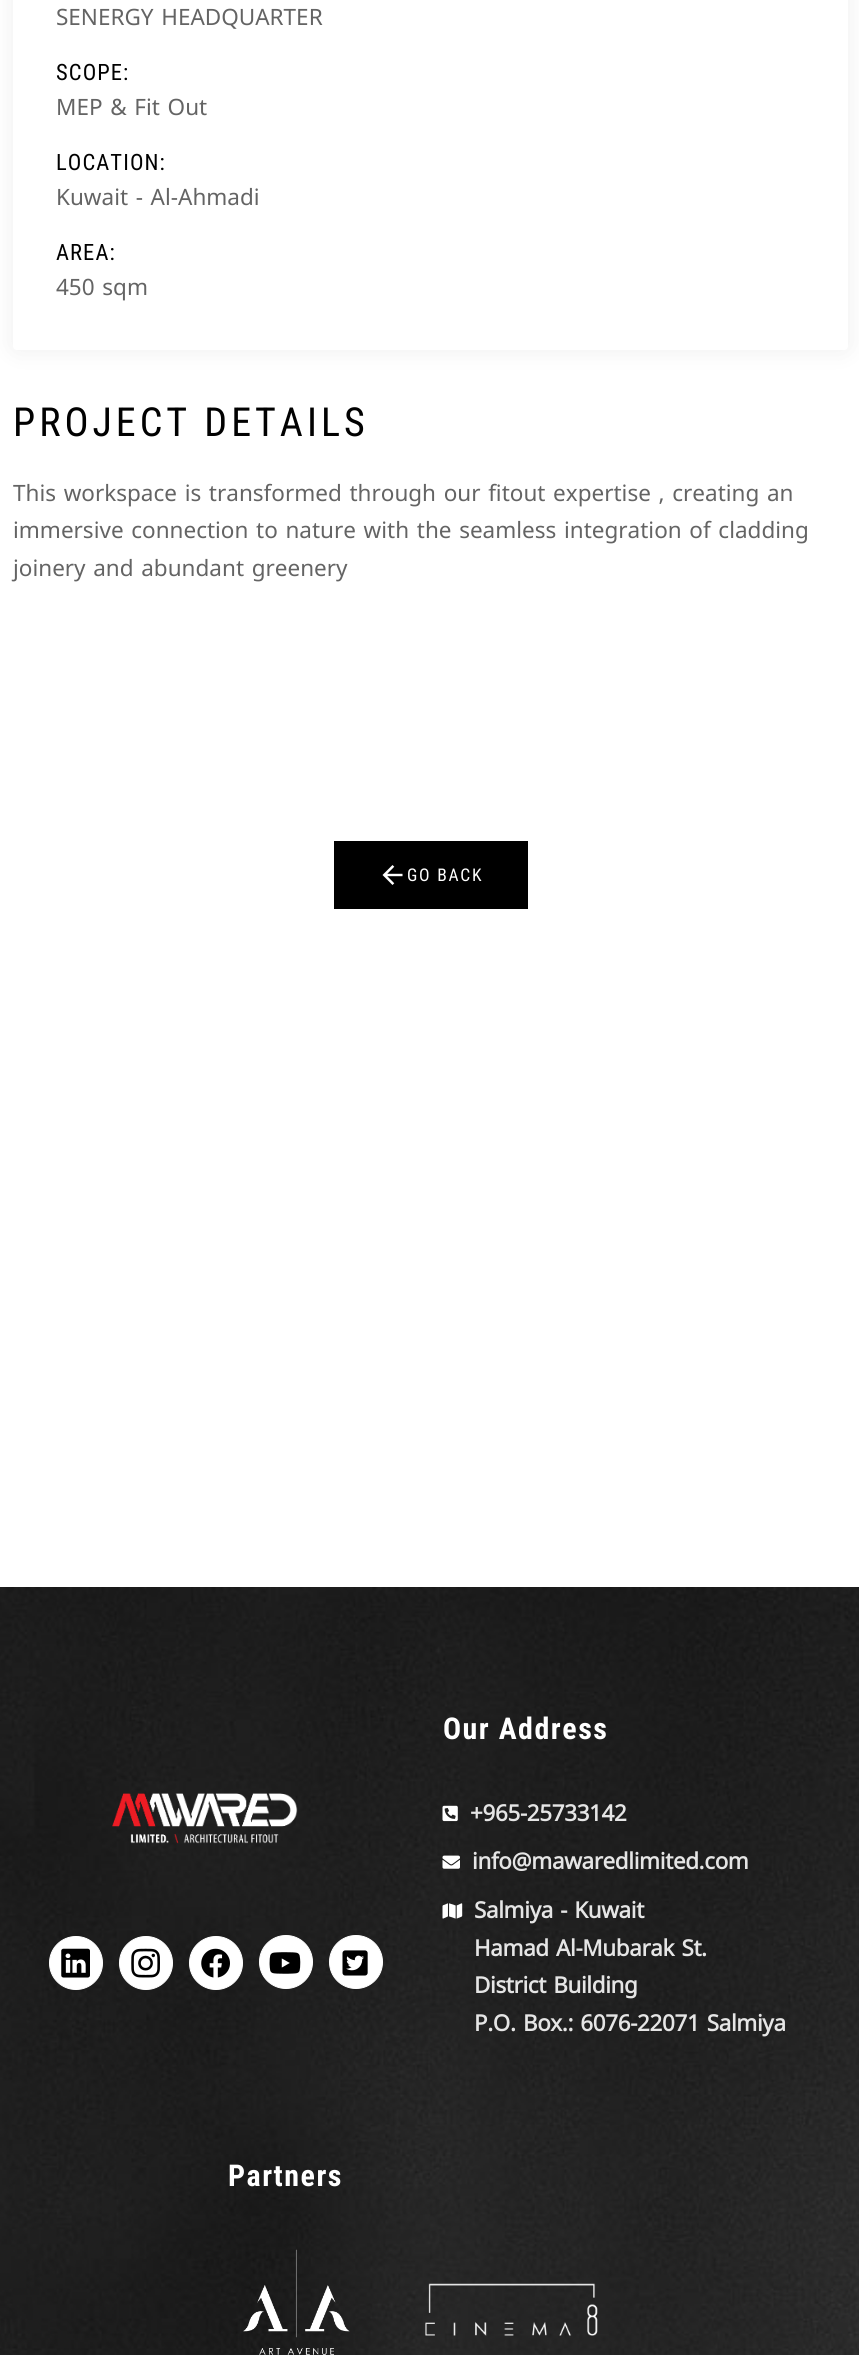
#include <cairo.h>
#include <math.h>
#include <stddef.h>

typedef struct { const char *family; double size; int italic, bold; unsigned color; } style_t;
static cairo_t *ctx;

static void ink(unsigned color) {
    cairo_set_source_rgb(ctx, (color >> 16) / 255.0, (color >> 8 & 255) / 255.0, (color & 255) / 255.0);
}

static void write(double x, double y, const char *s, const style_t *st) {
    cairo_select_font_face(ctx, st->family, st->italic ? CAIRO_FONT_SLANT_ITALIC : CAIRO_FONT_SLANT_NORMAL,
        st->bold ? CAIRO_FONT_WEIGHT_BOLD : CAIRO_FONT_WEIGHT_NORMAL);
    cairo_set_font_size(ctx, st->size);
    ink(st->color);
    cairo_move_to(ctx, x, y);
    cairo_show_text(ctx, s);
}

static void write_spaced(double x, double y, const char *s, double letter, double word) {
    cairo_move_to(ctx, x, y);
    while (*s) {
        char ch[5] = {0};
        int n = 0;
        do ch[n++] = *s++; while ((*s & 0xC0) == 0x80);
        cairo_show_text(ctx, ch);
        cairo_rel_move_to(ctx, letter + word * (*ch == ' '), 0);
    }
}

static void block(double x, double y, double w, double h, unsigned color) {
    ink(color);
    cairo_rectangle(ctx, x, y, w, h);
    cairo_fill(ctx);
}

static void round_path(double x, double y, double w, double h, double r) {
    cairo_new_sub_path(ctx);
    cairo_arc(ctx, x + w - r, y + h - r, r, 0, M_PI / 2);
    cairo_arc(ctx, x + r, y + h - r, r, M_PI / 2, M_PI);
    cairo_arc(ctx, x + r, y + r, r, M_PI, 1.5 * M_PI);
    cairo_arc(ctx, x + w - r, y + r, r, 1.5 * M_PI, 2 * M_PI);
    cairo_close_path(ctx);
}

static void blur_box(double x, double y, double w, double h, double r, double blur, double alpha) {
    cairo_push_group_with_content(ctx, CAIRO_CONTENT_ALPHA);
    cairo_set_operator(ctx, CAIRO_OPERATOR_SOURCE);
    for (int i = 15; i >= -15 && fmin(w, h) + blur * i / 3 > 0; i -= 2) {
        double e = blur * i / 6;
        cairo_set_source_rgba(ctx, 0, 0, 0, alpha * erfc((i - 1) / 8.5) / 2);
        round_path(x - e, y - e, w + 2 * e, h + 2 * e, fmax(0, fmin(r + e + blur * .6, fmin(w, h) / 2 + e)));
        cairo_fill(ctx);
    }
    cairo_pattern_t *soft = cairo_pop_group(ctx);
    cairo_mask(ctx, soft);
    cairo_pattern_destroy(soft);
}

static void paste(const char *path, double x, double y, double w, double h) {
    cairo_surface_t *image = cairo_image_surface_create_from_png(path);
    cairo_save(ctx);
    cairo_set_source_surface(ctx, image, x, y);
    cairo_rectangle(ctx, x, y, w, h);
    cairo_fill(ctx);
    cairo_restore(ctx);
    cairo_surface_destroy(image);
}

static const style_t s1 = {"Noto Kufi Arabic", 22.5, 0, 0, 0x646464};

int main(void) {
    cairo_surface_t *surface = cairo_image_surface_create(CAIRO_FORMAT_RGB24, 859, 2355);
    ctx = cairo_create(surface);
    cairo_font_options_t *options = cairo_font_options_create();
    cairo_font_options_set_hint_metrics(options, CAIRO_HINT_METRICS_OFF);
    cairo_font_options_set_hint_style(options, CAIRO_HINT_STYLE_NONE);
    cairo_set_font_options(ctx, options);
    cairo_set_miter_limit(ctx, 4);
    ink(0xffffff);
    cairo_paint(ctx);
    ink(0x000000);
    blur_box(13, -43, 835, 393, 4, 13, 0.07);
    ink(0xffffff);
    round_path(13, -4, 835, 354, 4);
    cairo_fill(ctx);
    write(56, 25, "SENERGY HEADQUARTER", &s1);
    cairo_select_font_face(ctx, "Roboto Condensed", CAIRO_FONT_SLANT_NORMAL, CAIRO_FONT_WEIGHT_NORMAL);
    ink(0x010101);
    write_spaced(56, 80, "SCOPE:", 1.1, 0);
    write(56, 115, "MEP & Fit Out", &s1);
    cairo_select_font_face(ctx, "Roboto Condensed", CAIRO_FONT_SLANT_NORMAL, CAIRO_FONT_WEIGHT_NORMAL);
    ink(0x010101);
    write_spaced(56, 170, "LOCATION:", 1.1, 0);
    write(56, 205, "Kuwait - Al-Ahmadi", &s1);
    cairo_select_font_face(ctx, "Roboto Condensed", CAIRO_FONT_SLANT_NORMAL, CAIRO_FONT_WEIGHT_NORMAL);
    ink(0x010101);
    write_spaced(56, 260, "AREA:", 1.1, 0);
    write(56, 295, "450 sqm", &s1);
    cairo_select_font_face(ctx, "Roboto Condensed", CAIRO_FONT_SLANT_NORMAL, CAIRO_FONT_WEIGHT_NORMAL);
    cairo_set_font_size(ctx, 40);
    ink(0x010101);
    write_spaced(13, 436, "PROJECT DETAILS", 4, 0);
    write(13, 501, "This workspace is transformed through our fitout expertise , creating an", &s1);
    write(13, 538, "immersive connection to nature with the seamless integration of cladding", &s1);
    write(13, 576, "joinery and abundant greenery", &s1);
    block(334, 841, 194, 68, 0x000000);
    paste("pic1.png", 382, 865, 21, 20);
    cairo_select_font_face(ctx, "Roboto Condensed", CAIRO_FONT_SLANT_NORMAL, CAIRO_FONT_WEIGHT_NORMAL);
    cairo_set_font_size(ctx, 17.5);
    ink(0xffffff);
    write_spaced(407, 881, "GO BACK", 1.75, 0);
    paste("pic2.png", 0, 1587, 859, 768);
    paste("pic3.png", 112, 1793, 186, 51);
    cairo_arc(ctx, 76, 1963, 26.5, 0, 2 * M_PI);
    cairo_fill_preserve(ctx);
    cairo_set_line_width(ctx, 1);
    cairo_stroke(ctx);
    paste("pic4.png", 61, 1948, 29, 30);
    cairo_arc(ctx, 146, 1963, 26.5, 0, 2 * M_PI);
    cairo_fill_preserve(ctx);
    cairo_stroke(ctx);
    paste("pic5.png", 131, 1948, 29, 30);
    cairo_arc(ctx, 216, 1963, 26.5, 0, 2 * M_PI);
    cairo_fill_preserve(ctx);
    cairo_stroke(ctx);
    paste("pic6.png", 201, 1948, 29, 30);
    cairo_arc(ctx, 286, 1962, 26.5, 0, 2 * M_PI);
    cairo_fill_preserve(ctx);
    cairo_stroke(ctx);
    paste("pic7.png", 269, 1952, 32, 22);
    cairo_arc(ctx, 356, 1962, 26.5, 0, 2 * M_PI);
    cairo_fill_preserve(ctx);
    cairo_stroke(ctx);
    paste("pic8.png", 342, 1950, 26, 26);
    cairo_select_font_face(ctx, "Roboto Condensed", CAIRO_FONT_SLANT_NORMAL, CAIRO_FONT_WEIGHT_BOLD);
    cairo_set_font_size(ctx, 30);
    write_spaced(443, 1739, "Our Address", 1.5, 0);
    paste("pic9.png", 442, 1805, 16, 17);
    cairo_select_font_face(ctx, "Noto Kufi Arabic", CAIRO_FONT_SLANT_NORMAL, CAIRO_FONT_WEIGHT_BOLD);
    cairo_set_font_size(ctx, 22.5);
    ink(0xe5e5e5);
    write_spaced(470, 1821, "+965-25733142", -0.4, 0);
    paste("pic10.png", 442, 1855, 18, 14);
    write_spaced(472, 1869, "info@mawaredlimited.com", -0.4, 0);
    paste("pic11.png", 442, 1903, 21, 16);
    write_spaced(474, 1918, "Salmiya - Kuwait", -0.4, 0);
    write_spaced(474, 1956, "Hamad Al-Mubarak St.", -0.4, 0);
    write_spaced(474, 1993, "District Building", -0.4, 0);
    write_spaced(474, 2031, "P.O. Box.: 6076-22071 Salmiya", -0.4, 0);
    cairo_select_font_face(ctx, "Roboto Condensed", CAIRO_FONT_SLANT_NORMAL, CAIRO_FONT_WEIGHT_BOLD);
    cairo_set_font_size(ctx, 30);
    ink(0xffffff);
    write_spaced(228, 2186, "Partners", 1.5, 0);
    paste("pic12.png", 243, 2249, 107, 106);
    paste("pic13.png", 425, 2283, 173, 53);
    cairo_surface_write_to_png(surface, "screenshot.png");
    cairo_font_options_destroy(options);
    cairo_destroy(ctx);
    cairo_surface_destroy(surface);
    return 0;
}
